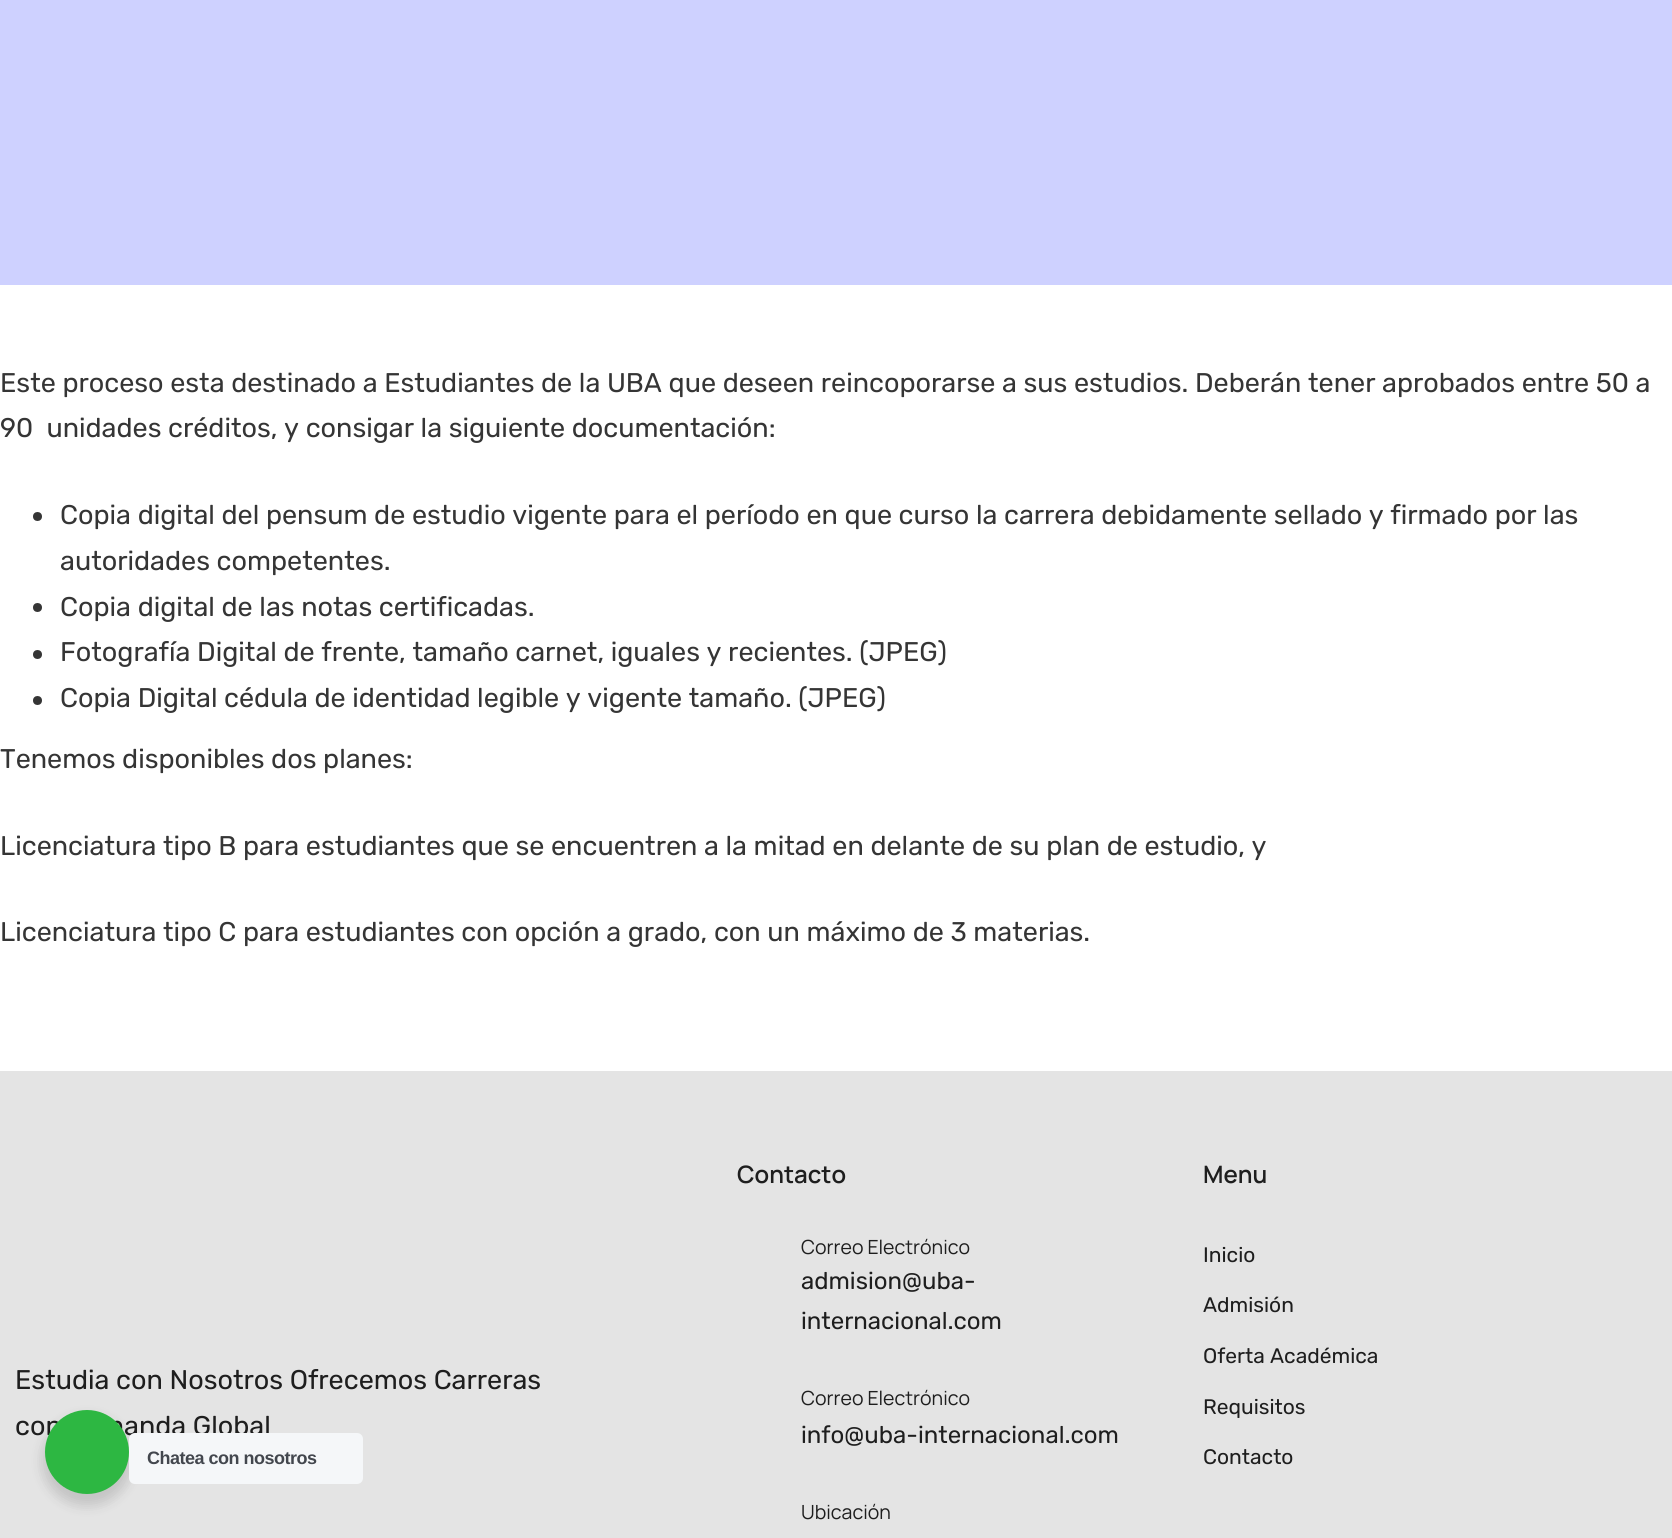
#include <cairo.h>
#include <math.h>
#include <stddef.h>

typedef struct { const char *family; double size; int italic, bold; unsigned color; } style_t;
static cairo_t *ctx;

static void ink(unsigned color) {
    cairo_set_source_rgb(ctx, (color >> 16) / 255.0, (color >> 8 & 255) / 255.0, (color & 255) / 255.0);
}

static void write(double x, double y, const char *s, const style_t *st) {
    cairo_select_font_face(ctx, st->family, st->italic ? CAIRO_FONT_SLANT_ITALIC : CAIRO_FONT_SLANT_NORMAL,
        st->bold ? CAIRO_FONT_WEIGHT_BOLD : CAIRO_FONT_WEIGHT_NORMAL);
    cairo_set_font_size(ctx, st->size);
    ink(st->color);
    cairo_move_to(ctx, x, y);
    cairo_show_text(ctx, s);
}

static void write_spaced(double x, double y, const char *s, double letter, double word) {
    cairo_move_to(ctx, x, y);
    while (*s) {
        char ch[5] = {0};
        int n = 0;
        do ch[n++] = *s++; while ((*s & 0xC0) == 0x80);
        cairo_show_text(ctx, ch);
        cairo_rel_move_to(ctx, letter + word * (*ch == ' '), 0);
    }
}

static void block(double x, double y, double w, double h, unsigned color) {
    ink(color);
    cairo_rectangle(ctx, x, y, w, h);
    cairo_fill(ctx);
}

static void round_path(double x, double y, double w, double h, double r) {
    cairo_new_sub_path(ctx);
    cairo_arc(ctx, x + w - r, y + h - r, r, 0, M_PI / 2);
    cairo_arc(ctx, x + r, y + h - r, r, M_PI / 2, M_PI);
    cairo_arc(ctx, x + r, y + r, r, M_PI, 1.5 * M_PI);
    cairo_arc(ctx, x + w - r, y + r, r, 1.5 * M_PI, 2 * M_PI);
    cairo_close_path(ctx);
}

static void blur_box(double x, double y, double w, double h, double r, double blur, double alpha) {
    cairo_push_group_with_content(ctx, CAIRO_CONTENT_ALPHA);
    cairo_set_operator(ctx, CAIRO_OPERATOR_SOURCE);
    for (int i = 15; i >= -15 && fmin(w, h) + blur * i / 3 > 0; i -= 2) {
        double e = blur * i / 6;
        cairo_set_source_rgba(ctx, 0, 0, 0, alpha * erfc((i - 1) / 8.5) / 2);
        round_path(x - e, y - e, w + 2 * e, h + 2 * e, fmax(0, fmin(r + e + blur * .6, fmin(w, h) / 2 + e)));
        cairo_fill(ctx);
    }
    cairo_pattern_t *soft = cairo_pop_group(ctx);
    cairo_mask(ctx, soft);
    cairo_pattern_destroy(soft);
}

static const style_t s1 = {"Rubik", 27, 0, 0, 0x353535};
static const style_t s2 = {"Rubik", 27, 0, 0, 0x1e1e1e};
static const style_t s3 = {"Manrope SemiBold", 24, 0, 0, 0x1e1e1e};
static const style_t s4 = {"Manrope", 19.5, 0, 0, 0x1e1e1e};
static const style_t s5 = {"Rubik", 24, 0, 0, 0x1e1e1e};
static const style_t s6 = {"Rubik", 21, 0, 0, 0x1e1e1e};

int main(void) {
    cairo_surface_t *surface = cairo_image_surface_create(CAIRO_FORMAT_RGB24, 1672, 1538);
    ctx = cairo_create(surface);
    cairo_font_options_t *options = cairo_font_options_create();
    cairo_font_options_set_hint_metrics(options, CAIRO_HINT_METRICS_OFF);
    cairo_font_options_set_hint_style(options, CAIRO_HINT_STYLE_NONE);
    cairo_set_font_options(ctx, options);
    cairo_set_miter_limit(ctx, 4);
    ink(0xffffff);
    cairo_paint(ctx);
    block(0, 0, 1672, 285, 0xced1ff);
    write(0, 392, "Este proceso esta destinado a Estudiantes de la UBA que deseen reincoporarse a sus estudios. Deberán tener aprobados entre 50 a", &s1);
    write(0, 437, "90  unidades créditos, y consigar la siguiente documentación:", &s1);
    cairo_new_path(ctx);
    cairo_arc(ctx, 37.5, 516.5, 4.5, 0, 2 * M_PI);
    cairo_fill(ctx);
    write(60, 524, "Copia digital del pensum de estudio vigente para el período en que curso la carrera debidamente sellado y firmado por las", &s1);
    write(60, 570, "autoridades competentes.", &s1);
    cairo_new_path(ctx);
    cairo_arc(ctx, 37.5, 607.5, 4.5, 0, 2 * M_PI);
    cairo_fill(ctx);
    write(60, 616, "Copia digital de las notas certificadas.", &s1);
    cairo_new_path(ctx);
    cairo_arc(ctx, 37.5, 654.5, 4.5, 0, 2 * M_PI);
    cairo_fill(ctx);
    write(60, 661, "Fotografía Digital de frente, tamaño carnet, iguales y recientes. (JPEG)", &s1);
    cairo_new_path(ctx);
    cairo_arc(ctx, 37.5, 700.5, 4.5, 0, 2 * M_PI);
    cairo_fill(ctx);
    write(60, 707, "Copia Digital cédula de identidad legible y vigente tamaño. (JPEG)", &s1);
    write(0, 768, "Tenemos disponibles dos planes:", &s1);
    write(0, 855, "Licenciatura tipo B para estudiantes que se encuentren a la mitad en delante de su plan de estudio, y", &s1);
    write(0, 941, "Licenciatura tipo C para estudiantes con opción a grado, con un máximo de 3 materias.", &s1);
    block(0, 1071, 1672, 467, 0xe4e4e4);
    write(15, 1389, "Estudia con Nosotros Ofrecemos Carreras", &s2);
    write(15, 1435, "con", &s2);
    write(100, 1435, "manda Global", &s2);
    write(737, 1183, "Contacto", &s3);
    write(801, 1254, "Correo Electrónico", &s4);
    write(801, 1289, "admision@uba-", &s5);
    write(801, 1329, "internacional.com", &s5);
    write(801, 1405, "Correo Electrónico", &s4);
    write(801, 1443, "info@uba-internacional.com", &s5);
    write(801, 1519, "Ubicación", &s4);
    write(1203, 1183, "Menu", &s3);
    write(1203, 1262, "Inicio", &s6);
    write(1203, 1312, "Admisión", &s6);
    write(1203, 1363, "Oferta Académica", &s6);
    write(1203, 1414, "Requisitos", &s6);
    write(1203, 1464, "Contacto", &s6);
    ink(0x000000);
    blur_box(42, 1416, 90, 90, 45, 6, 0.14);
    ink(0x2db742);
    cairo_arc(ctx, 87, 1452, 42, 0, 2 * M_PI);
    cairo_fill(ctx);
    ink(0xf5f7f9);
    round_path(129, 1433, 234, 51, 6);
    cairo_fill(ctx);
    cairo_select_font_face(ctx, "Liberation Sans", CAIRO_FONT_SLANT_NORMAL, CAIRO_FONT_WEIGHT_BOLD);
    cairo_set_font_size(ctx, 18);
    ink(0x43474e);
    write_spaced(147, 1464, "Chatea con nosotros", -0.5, 0);
    cairo_surface_write_to_png(surface, "screenshot.png");
    cairo_font_options_destroy(options);
    cairo_destroy(ctx);
    cairo_surface_destroy(surface);
    return 0;
}
